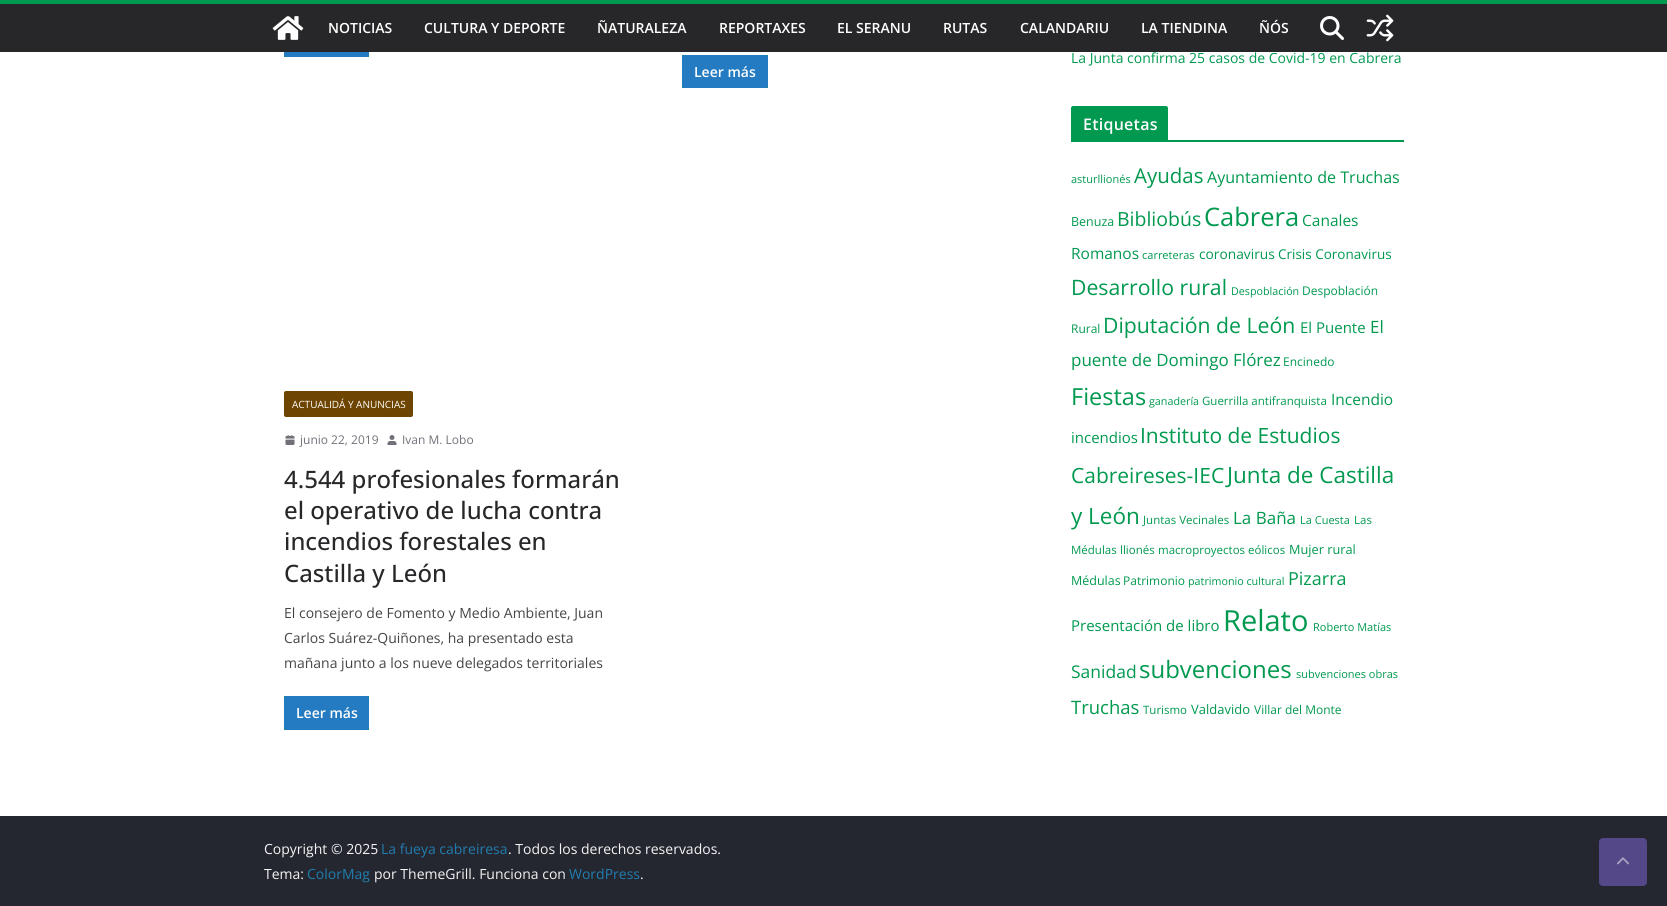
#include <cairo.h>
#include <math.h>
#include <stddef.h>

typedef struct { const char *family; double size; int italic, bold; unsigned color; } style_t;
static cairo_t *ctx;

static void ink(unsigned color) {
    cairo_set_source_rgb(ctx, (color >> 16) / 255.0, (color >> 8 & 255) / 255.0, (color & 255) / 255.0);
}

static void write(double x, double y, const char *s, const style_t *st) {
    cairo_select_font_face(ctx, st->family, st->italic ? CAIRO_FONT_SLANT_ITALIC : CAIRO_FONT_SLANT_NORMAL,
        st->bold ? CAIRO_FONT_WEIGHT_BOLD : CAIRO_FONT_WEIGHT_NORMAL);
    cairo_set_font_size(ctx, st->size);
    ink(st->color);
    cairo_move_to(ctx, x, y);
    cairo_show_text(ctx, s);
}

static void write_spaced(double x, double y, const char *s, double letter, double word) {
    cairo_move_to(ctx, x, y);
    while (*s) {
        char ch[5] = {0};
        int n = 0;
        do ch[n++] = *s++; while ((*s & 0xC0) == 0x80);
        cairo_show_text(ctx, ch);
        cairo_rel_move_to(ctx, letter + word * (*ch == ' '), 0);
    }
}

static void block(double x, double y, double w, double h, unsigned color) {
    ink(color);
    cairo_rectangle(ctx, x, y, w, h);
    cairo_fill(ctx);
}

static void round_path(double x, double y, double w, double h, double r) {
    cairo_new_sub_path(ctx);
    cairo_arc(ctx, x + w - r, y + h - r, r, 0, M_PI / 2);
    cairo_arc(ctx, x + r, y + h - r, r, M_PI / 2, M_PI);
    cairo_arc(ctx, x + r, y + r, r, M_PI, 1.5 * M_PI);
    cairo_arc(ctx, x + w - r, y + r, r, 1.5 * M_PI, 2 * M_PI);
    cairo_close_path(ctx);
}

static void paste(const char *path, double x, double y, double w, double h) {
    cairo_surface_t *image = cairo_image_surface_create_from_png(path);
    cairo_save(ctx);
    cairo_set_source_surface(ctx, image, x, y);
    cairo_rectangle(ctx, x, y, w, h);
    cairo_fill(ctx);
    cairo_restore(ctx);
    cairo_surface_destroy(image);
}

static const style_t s1 = {"Open Sans SemiBold", 14, 0, 0, 0xffffff};
static const style_t s2 = {"Open Sans", 10, 0, 0, 0xffffff};
static const style_t s3 = {"Open Sans", 12, 0, 0, 0x71717a};
static const style_t s4 = {"Open Sans Medium", 24, 0, 0, 0x27272a};
static const style_t s5 = {"Open Sans", 14, 0, 0, 0x444444};
static const style_t s6 = {"Open Sans", 14, 0, 0, 0x00994f};
static const style_t s7 = {"Open Sans", 11, 0, 0, 0x00994f};
static const style_t s8 = {"Open Sans", 20.5, 0, 0, 0x00994f};
static const style_t s9 = {"Open Sans", 16.1, 0, 0, 0x00994f};
static const style_t s10 = {"Open Sans", 12.5, 0, 0, 0x00994f};
static const style_t s11 = {"Open Sans", 19.5, 0, 0, 0x00994f};
static const style_t s12 = {"Open Sans", 25.5, 0, 0, 0x00994f};
static const style_t s13 = {"Open Sans", 15.5, 0, 0, 0x00994f};
static const style_t s14 = {"Open Sans", 13.75, 0, 0, 0x00994f};
static const style_t s15 = {"Open Sans", 13.5, 0, 0, 0x00994f};
static const style_t s16 = {"Open Sans", 21.25, 0, 0, 0x00994f};
static const style_t s17 = {"Open Sans", 10.75, 0, 0, 0x00994f};
static const style_t s18 = {"Open Sans", 12, 0, 0, 0x00994f};
static const style_t s19 = {"Open Sans", 15, 0, 0, 0x00994f};
static const style_t s20 = {"Open Sans", 17, 0, 0, 0x00994f};
static const style_t s21 = {"Open Sans", 23.5, 0, 0, 0x00994f};
static const style_t s22 = {"Open Sans", 11.5, 0, 0, 0x00994f};
static const style_t s23 = {"Open Sans", 21, 0, 0, 0x00994f};
static const style_t s24 = {"Open Sans", 22.5, 0, 0, 0x00994f};
static const style_t s25 = {"Open Sans", 12.75, 0, 0, 0x00994f};
static const style_t s26 = {"Open Sans", 18, 0, 0, 0x00994f};
static const style_t s27 = {"Open Sans", 29, 0, 0, 0x00994f};
static const style_t s28 = {"Open Sans", 17.5, 0, 0, 0x00994f};
static const style_t s29 = {"Open Sans", 24, 0, 0, 0x00994f};
static const style_t s30 = {"Open Sans", 18.5, 0, 0, 0x00994f};
static const style_t s31 = {"Open Sans", 13, 0, 0, 0x00994f};
static const style_t s32 = {"Open Sans", 14, 0, 0, 0xf4f4f5};
static const style_t s33 = {"Open Sans", 14, 0, 0, 0x207daf};

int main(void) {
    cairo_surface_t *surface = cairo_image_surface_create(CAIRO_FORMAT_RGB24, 1667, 906);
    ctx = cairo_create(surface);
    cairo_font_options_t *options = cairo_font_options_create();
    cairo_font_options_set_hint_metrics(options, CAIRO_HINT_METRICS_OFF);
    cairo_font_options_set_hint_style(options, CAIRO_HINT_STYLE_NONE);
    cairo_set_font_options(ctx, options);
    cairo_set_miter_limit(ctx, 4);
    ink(0xffffff);
    cairo_paint(ctx);
    block(284, 55, 85, 2, 0x00994f);
    ink(0x257bc1);
    round_path(284, 24, 85, 33, 2);
    cairo_fill(ctx);
    block(0, 4, 1667, 48, 0x27272a);
    block(0, 0, 1667, 4, 0x00994f);
    paste("pic1.png", 272, 16, 32, 24);
    write(328, 33, "NOTICIAS", &s1);
    write(424, 33, "CULTURA Y DEPORTE", &s1);
    write(597, 33, "ÑATURALEZA", &s1);
    write(719, 33, "REPORTAXES", &s1);
    write(837, 33, "EL SERANU", &s1);
    write(943, 33, "RUTAS", &s1);
    write(1020, 33, "CALANDARIU", &s1);
    write(1141, 33, "LA TIENDINA", &s1);
    write(1259, 33, "ÑÓS", &s1);
    paste("pic2.png", 1320, 16, 24, 24);
    paste("pic3.png", 1366, 14, 28, 28);
    block(682, 55, 86, 33, 0x00994f);
    ink(0x257bc1);
    round_path(682, 55, 86, 33, 2);
    cairo_fill(ctx);
    write(694, 77, "Leer más", &s1);
    ink(0x6d4501);
    round_path(284, 391, 129, 26, 2);
    cairo_fill(ctx);
    write(292, 408, "ACTUALIDÁ Y ANUNCIAS", &s2);
    paste("pic4.png", 285, 435, 10, 10);
    write(300, 444, "junio 22, 2019", &s3);
    paste("pic5.png", 387, 435, 10, 10);
    write(402, 444, "Ivan M. Lobo", &s3);
    write(284, 488, "4.544 profesionales formarán", &s4);
    write(284, 519, "el operativo de lucha contra", &s4);
    write(284, 550, "incendios forestales en", &s4);
    write(284, 582, "Castilla y León", &s4);
    write(284, 618, "El consejero de Fomento y Medio Ambiente, Juan", &s5);
    write(284, 643, "Carlos Suárez-Quiñones, ha presentado esta", &s5);
    write(284, 668, "mañana junto a los nueve delegados territoriales", &s5);
    block(284, 696, 85, 34, 0x00994f);
    ink(0x257bc1);
    round_path(284, 696, 85, 34, 2);
    cairo_fill(ctx);
    write(296, 718, "Leer más", &s1);
    write(1071, 63, "La Junta confirma 25 casos de Covid-19 en Cabrera", &s6);
    block(1071, 140, 333, 2, 0x00994f);
    cairo_new_path(ctx);
    cairo_move_to(ctx, 1073, 106);
    cairo_line_to(ctx, 1166, 106);
    cairo_curve_to(ctx, 1167, 106, 1168, 107, 1168, 108);
    cairo_line_to(ctx, 1168, 140);
    cairo_line_to(ctx, 1071, 140);
    cairo_line_to(ctx, 1071, 108);
    cairo_curve_to(ctx, 1071, 107, 1072, 106, 1073, 106);
    cairo_close_path(ctx);
    cairo_fill(ctx);
    cairo_select_font_face(ctx, "Open Sans SemiBold", CAIRO_FONT_SLANT_NORMAL, CAIRO_FONT_WEIGHT_NORMAL);
    cairo_set_font_size(ctx, 16);
    ink(0xffffff);
    write_spaced(1083, 130, "Etiquetas", 0.25, 0);
    write(1071, 183, "asturllionés", &s7);
    write(1134, 183, "Ayudas", &s8);
    write(1207, 183, "Ayuntamiento de Truchas", &s9);
    write(1071, 226, "Benuza", &s10);
    write(1117, 226, "Bibliobús", &s11);
    write(1204, 226, "Cabrera", &s12);
    write(1302, 226, "Canales", &s13);
    write(1071, 259, "Romanos", &s13);
    write(1142, 259, "carreteras", &s7);
    write(1199, 259, "coronavirus", &s14);
    write(1278, 259, "Crisis Coronavirus", &s15);
    write(1071, 295, "Desarrollo rural", &s16);
    write(1231, 295, "Despoblación", &s17);
    write(1302, 295, "Despoblación", &s18);
    write(1071, 333, "Rural", &s18);
    write(1103, 333, "Diputación de León", &s16);
    write(1300, 333, "El Puente", &s19);
    write(1370, 333, "El", &s20);
    write(1071, 366, "puente de Domingo Flórez", &s20);
    write(1283, 366, "Encinedo", &s18);
    write(1071, 405, "Fiestas", &s21);
    write(1149, 405, "ganadería", &s17);
    write(1202, 405, "Guerrilla antifranquista", &s22);
    write(1331, 405, "Incendio", &s13);
    write(1071, 443, "incendios", &s19);
    write(1140, 443, "Instituto de Estudios", &s23);
    write(1071, 483, "Cabreireses-IEC", &s23);
    write(1227, 483, "Junta de Castilla", &s24);
    write(1071, 524, "y León", &s24);
    write(1143, 524, "Juntas Vecinales", &s22);
    write(1233, 524, "La Baña", &s20);
    write(1300, 524, "La Cuesta", &s7);
    write(1354, 524, "Las", &s22);
    write(1071, 554, "Médulas", &s22);
    write(1120, 554, "llionés", &s22);
    write(1158, 554, "macroproyectos eólicos", &s22);
    write(1289, 554, "Mujer rural", &s25);
    write(1071, 585, "Médulas", &s10);
    write(1123, 585, "Patrimonio", &s18);
    write(1188, 585, "patrimonio cultural", &s17);
    write(1288, 585, "Pizarra", &s26);
    write(1071, 631, "Presentación de libro", &s19);
    write(1223, 631, "Relato", &s27);
    write(1313, 631, "Roberto Matías", &s7);
    write(1071, 678, "Sanidad", &s28);
    write(1139, 678, "subvenciones", &s29);
    write(1296, 678, "subvenciones obras", &s7);
    write(1071, 714, "Truchas", &s30);
    write(1143, 714, "Turismo", &s22);
    write(1191, 714, "Valdavido", &s31);
    write(1254, 714, "Villar del Monte", &s18);
    block(0, 816, 1667, 90, 0x252730);
    write(264, 854, "Copyright © 2025", &s32);
    write(381, 854, "La fueya cabreiresa", &s33);
    write(508, 854, ". Todos los derechos reservados.", &s32);
    write(264, 879, "Tema:", &s32);
    write(307, 879, "ColorMag", &s33);
    write(374, 879, "por ThemeGrill. Funciona con", &s32);
    write(569, 879, "WordPress", &s33);
    write(640, 879, ".", &s32);
    ink(0x544888);
    round_path(1599, 838, 48, 48, 4);
    cairo_fill(ctx);
    paste("pic6.png", 1617, 857, 12, 8);
    cairo_surface_write_to_png(surface, "screenshot.png");
    cairo_font_options_destroy(options);
    cairo_destroy(ctx);
    cairo_surface_destroy(surface);
    return 0;
}
